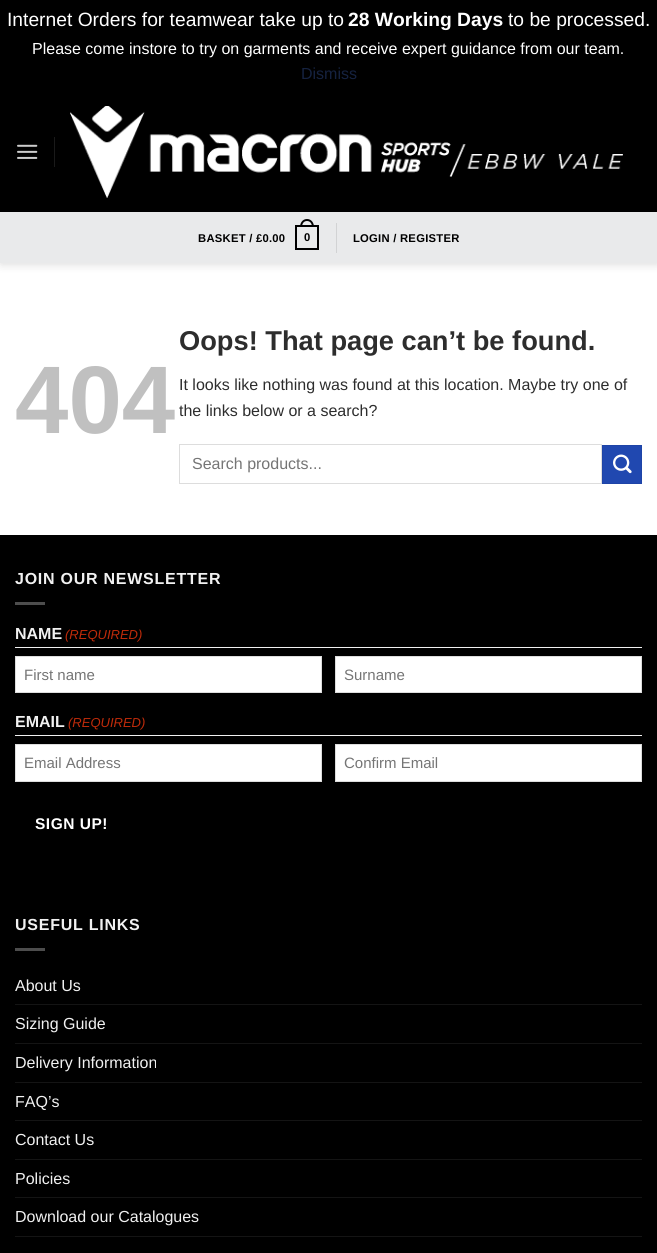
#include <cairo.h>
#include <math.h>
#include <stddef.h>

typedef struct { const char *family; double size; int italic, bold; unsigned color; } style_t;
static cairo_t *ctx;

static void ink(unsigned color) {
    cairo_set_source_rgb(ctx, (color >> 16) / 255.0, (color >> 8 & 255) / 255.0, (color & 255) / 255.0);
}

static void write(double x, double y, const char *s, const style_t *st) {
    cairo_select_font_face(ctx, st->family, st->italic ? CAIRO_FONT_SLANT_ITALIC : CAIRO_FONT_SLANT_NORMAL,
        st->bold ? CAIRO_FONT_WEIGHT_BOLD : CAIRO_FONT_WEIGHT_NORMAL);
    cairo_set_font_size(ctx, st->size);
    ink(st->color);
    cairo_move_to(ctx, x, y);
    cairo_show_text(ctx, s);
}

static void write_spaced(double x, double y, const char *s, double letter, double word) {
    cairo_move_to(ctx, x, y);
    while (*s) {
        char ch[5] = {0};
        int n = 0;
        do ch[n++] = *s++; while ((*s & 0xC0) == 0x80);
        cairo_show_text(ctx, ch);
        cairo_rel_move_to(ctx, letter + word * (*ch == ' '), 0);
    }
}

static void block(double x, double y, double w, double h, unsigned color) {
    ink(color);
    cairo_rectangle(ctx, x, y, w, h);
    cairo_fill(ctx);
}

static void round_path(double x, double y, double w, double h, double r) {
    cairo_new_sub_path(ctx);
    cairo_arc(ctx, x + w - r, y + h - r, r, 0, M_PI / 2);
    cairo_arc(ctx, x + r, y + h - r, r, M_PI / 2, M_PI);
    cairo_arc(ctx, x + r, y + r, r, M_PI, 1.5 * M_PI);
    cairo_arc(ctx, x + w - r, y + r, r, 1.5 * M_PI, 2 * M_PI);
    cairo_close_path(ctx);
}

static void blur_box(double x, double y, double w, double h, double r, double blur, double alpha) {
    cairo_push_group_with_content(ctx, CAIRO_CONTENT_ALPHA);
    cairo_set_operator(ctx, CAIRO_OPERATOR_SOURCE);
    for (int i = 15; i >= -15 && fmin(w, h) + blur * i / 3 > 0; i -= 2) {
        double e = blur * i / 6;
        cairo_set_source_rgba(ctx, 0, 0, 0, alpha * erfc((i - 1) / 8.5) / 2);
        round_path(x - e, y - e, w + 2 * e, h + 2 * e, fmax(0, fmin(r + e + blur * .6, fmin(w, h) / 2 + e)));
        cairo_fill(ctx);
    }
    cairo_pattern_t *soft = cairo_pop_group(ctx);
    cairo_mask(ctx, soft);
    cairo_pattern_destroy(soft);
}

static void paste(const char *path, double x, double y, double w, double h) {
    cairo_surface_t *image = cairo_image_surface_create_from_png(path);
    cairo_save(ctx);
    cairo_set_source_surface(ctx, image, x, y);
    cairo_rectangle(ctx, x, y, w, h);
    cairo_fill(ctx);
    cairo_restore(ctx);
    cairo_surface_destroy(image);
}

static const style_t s1 = {"Liberation Sans", 19.25, 0, 0, 0xffffff};
static const style_t s2 = {"Liberation Sans", 19.25, 0, 1, 0xffffff};
static const style_t s3 = {"Liberation Sans", 16, 0, 0, 0xffffff};
static const style_t s4 = {"Liberation Sans", 16, 0, 0, 0x152240};
static const style_t s5 = {"Liberation Sans", 96, 0, 1, 0xc0c0c0};
static const style_t s6 = {"Liberation Sans", 27.25, 0, 1, 0x2d2d2d};
static const style_t s7 = {"Liberation Sans", 16, 0, 0, 0x2d2d2d};
static const style_t s8 = {"Liberation Sans", 16, 0, 0, 0x757575};
static const style_t s9 = {"Liberation Sans", 16, 0, 1, 0xf1f1f1};
static const style_t s10 = {"Liberation Sans", 13, 1, 0, 0xc02b0a};
static const style_t s11 = {"Liberation Sans", 15, 0, 0, 0x757575};
static const style_t s12 = {"Liberation Sans", 16, 0, 0, 0xf1f1f1};

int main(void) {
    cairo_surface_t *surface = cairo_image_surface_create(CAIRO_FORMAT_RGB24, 657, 1253);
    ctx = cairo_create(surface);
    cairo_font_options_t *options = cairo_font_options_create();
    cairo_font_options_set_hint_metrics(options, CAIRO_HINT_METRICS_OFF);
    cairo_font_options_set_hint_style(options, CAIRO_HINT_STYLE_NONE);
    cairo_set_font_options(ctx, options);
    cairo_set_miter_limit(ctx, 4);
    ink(0xffffff);
    cairo_paint(ctx);
    block(0, 0, 657, 92, 0x000000);
    write(7, 26, "Internet Orders for teamwear take up to", &s1);
    write(348, 26, "28 Working Days", &s2);
    write(508, 26, "to be processed.", &s1);
    write(32, 54, "Please come instore to try on garments and receive expert guidance from our team.", &s3);
    write(301, 79, "Dismiss", &s4);
    ink(0x000000);
    blur_box(1, 93, 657, 171, 0, 5, 0.15);
    block(0, 92, 657, 120, 0x000000);
    paste("pic1.png", 17, 144, 21, 15);
    block(54, 137, 1, 30, 0x1a1a1a);
    paste("pic2.png", 70, 106, 553, 92);
    block(0, 212, 657, 51, 0xe9eaeb);
    cairo_select_font_face(ctx, "Liberation Sans", CAIRO_FONT_SLANT_NORMAL, CAIRO_FONT_WEIGHT_BOLD);
    cairo_set_font_size(ctx, 11.25);
    ink(0x000000);
    write_spaced(198, 242, "BASKET / £0.00", 0.25, 0);
    cairo_rectangle(ctx, 296, 226, 22, 23);
    cairo_stroke(ctx);
    cairo_set_fill_rule(ctx, CAIRO_FILL_RULE_EVEN_ODD);
    cairo_new_path(ctx);
    cairo_move_to(ctx, 307, 219);
    cairo_curve_to(ctx, 311.5, 219, 314, 223, 314, 227);
    cairo_line_to(ctx, 300, 227);
    cairo_curve_to(ctx, 300, 223, 302.5, 219, 307, 219);
    cairo_close_path(ctx);
    cairo_move_to(ctx, 307, 221);
    cairo_curve_to(ctx, 310.5, 221, 312, 224, 312, 227);
    cairo_line_to(ctx, 302, 227);
    cairo_curve_to(ctx, 302, 224, 303.5, 221, 307, 221);
    cairo_close_path(ctx);
    cairo_fill(ctx);
    write_spaced(304, 241, "0", 0.25, 0);
    block(336, 223, 1, 30, 0xd2d3d4);
    ink(0x000000);
    write_spaced(353, 242, "LOGIN / REGISTER", 0.25, 0);
    write(15, 433, "404", &s5);
    write(179, 350, "Oops! That page can’t be found.", &s6);
    write(179, 390, "It looks like nothing was found at this location. Maybe try one of", &s7);
    write(179, 416, "the links below or a search?", &s7);
    cairo_rectangle(ctx, 179.5, 444.5, 422, 39);
    ink(0xdddddd);
    cairo_set_line_width(ctx, 1);
    cairo_stroke(ctx);
    write(192, 469, "Search products...", &s8);
    ink(0x2048b0);
    cairo_rectangle(ctx, 602.5, 445.5, 39, 38);
    cairo_fill_preserve(ctx);
    ink(0x1e44a7);
    cairo_stroke(ctx);
    paste("pic3.png", 613, 454, 19, 20);
    block(0, 535, 657, 718, 0x000000);
    cairo_select_font_face(ctx, "Liberation Sans", CAIRO_FONT_SLANT_NORMAL, CAIRO_FONT_WEIGHT_BOLD);
    ink(0xf1f1f1);
    write_spaced(15, 584, "JOIN OUR NEWSLETTER", 0.75, 0);
    block(15, 602, 30, 3, 0x4d4d4d);
    block(15, 647, 627, 1, 0xf1f1f1);
    write(15, 639, "NAME", &s9);
    write(65, 639, "(REQUIRED)", &s10);
    ink(0xffffff);
    cairo_rectangle(ctx, 15.5, 656.5, 306, 36);
    cairo_fill_preserve(ctx);
    ink(0xdddddd);
    cairo_stroke(ctx);
    write(24, 680, "First name", &s11);
    ink(0xffffff);
    cairo_rectangle(ctx, 335.5, 656.5, 306, 36);
    cairo_fill_preserve(ctx);
    ink(0xdddddd);
    cairo_stroke(ctx);
    write(344, 680, "Surname", &s11);
    block(15, 735, 627, 1, 0xf1f1f1);
    write(15, 727, "EMAIL", &s9);
    write(68, 727, "(REQUIRED)", &s10);
    ink(0xffffff);
    cairo_rectangle(ctx, 15.5, 744.5, 306, 37);
    cairo_fill_preserve(ctx);
    ink(0xdddddd);
    cairo_stroke(ctx);
    write(24, 768, "Email Address", &s11);
    ink(0xffffff);
    cairo_rectangle(ctx, 335.5, 744.5, 306, 37);
    cairo_fill_preserve(ctx);
    ink(0xdddddd);
    cairo_stroke(ctx);
    write(344, 768, "Confirm Email", &s11);
    cairo_select_font_face(ctx, "Liberation Sans", CAIRO_FONT_SLANT_NORMAL, CAIRO_FONT_WEIGHT_BOLD);
    cairo_set_font_size(ctx, 15.5);
    ink(0xffffff);
    write_spaced(35, 829, "SIGN UP!", 0.5, 0);
    cairo_set_font_size(ctx, 16);
    ink(0xf1f1f1);
    write_spaced(15, 930, "USEFUL LINKS", 0.75, 0);
    block(15, 948, 30, 3, 0x4d4d4d);
    write(15, 991, "About Us", &s12);
    block(15, 1004, 627, 1, 0x141414);
    write(15, 1029, "Sizing Guide", &s12);
    block(15, 1043, 627, 1, 0x141414);
    write(15, 1068, "Delivery Information", &s12);
    block(15, 1082, 627, 1, 0x141414);
    write(15, 1107, "FAQ’s", &s12);
    block(15, 1120, 627, 1, 0x141414);
    write(15, 1145, "Contact Us", &s12);
    block(15, 1159, 627, 1, 0x141414);
    write(15, 1184, "Policies", &s12);
    block(15, 1197, 627, 1, 0x141414);
    write(15, 1222, "Download our Catalogues", &s12);
    block(15, 1236, 627, 1, 0x141414);
    cairo_surface_write_to_png(surface, "screenshot.png");
    cairo_font_options_destroy(options);
    cairo_destroy(ctx);
    cairo_surface_destroy(surface);
    return 0;
}
